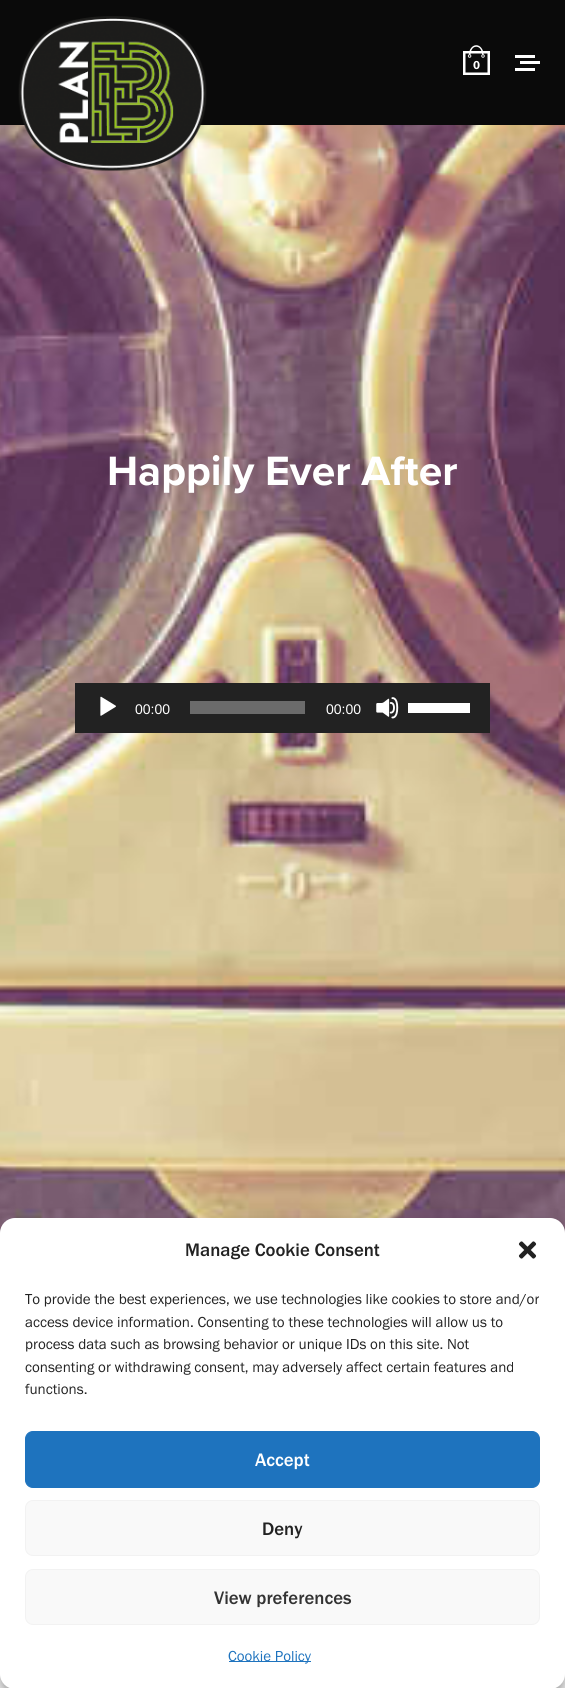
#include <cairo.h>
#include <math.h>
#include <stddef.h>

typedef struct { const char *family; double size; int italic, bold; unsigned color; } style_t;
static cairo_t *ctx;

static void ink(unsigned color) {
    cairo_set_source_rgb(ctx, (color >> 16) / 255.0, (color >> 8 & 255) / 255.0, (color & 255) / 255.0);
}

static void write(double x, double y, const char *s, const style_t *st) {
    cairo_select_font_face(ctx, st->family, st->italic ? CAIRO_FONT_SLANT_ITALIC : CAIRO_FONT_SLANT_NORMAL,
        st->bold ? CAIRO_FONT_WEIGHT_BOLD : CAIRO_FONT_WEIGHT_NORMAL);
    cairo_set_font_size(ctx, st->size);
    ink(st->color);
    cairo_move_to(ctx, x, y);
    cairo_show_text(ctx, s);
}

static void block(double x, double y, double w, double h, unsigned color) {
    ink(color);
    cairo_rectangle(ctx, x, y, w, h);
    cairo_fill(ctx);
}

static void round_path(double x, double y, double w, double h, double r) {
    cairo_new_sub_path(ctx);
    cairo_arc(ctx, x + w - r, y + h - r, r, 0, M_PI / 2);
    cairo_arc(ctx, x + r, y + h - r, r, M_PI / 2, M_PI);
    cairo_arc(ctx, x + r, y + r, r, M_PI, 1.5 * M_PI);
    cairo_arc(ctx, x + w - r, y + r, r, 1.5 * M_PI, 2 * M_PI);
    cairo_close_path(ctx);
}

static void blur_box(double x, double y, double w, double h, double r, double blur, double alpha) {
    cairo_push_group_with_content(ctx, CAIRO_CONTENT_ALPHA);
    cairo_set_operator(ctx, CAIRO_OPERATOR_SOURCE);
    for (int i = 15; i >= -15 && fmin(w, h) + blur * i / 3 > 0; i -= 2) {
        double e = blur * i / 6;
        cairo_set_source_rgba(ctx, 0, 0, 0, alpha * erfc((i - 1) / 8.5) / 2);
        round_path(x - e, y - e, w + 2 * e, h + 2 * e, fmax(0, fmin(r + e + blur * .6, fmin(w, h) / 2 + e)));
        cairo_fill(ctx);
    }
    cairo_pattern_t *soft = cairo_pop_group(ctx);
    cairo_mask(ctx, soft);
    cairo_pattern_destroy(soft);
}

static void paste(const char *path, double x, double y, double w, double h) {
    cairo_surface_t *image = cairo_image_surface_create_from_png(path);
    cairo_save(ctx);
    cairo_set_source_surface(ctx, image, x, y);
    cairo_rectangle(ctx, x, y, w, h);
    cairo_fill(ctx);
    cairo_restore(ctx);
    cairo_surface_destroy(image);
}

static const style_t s1 = {"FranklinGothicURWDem", 12, 0, 0, 0xffffff};
static const style_t s2 = {"Proxima Nova", 42.5, 0, 1, 0xffffff};
static const style_t s3 = {"Liberation Sans", 14, 0, 0, 0xffffff};
static const style_t s4 = {"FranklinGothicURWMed", 18.75, 0, 0, 0x222222};
static const style_t s5 = {"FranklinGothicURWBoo", 15, 0, 0, 0x222222};
static const style_t s6 = {"FranklinGothicURWMed", 18.75, 0, 0, 0xffffff};
static const style_t s7 = {"FranklinGothicURWMed", 18.75, 0, 0, 0x333333};
static const style_t s8 = {"FranklinGothicURWBoo", 15, 0, 0, 0x1e73be};

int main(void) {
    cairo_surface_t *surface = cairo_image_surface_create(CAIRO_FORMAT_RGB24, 565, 1688);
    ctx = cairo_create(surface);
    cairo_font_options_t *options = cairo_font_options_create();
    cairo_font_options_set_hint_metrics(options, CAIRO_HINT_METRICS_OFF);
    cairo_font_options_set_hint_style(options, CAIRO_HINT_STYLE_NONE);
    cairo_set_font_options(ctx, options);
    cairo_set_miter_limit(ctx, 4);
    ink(0xffffff);
    cairo_paint(ctx);
    block(0, 0, 565, 125, 0x0a0a0a);
    paste("pic3.png", 0, 125, 565, 1108);
    paste("pic1.png", 18, 16, 189, 155);
    paste("pic2.png", 463, 45, 27, 30);
    write(473, 69, "0", &s1);
    block(515, 55, 20, 3, 0xfefefe);
    block(520, 61, 20, 3, 0xfefefe);
    block(515, 68, 20, 3, 0xfefefe);
    write(107, 485, "Happily Ever After", &s2);
    block(75, 683, 415, 50, 0x222222);
    paste("pic4.png", 100, 696, 16, 20);
    write(135, 714, "00:00", &s3);
    block(190, 701, 115, 13, 0x6b6b6b);
    write(326, 714, "00:00", &s3);
    paste("pic5.png", 376, 697, 23, 22);
    block(408, 703, 62, 10, 0xffffff);
    ink(0x000000);
    blur_box(0, 1225, 565, 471, 15, 4, 0.23);
    blur_box(0, 1230, 565, 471, 15, 12.5, 0.19);
    ink(0x808080);
    blur_box(478, 1596, 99, 75, 2.5, 3, 1);
    ink(0xffffff);
    round_path(0, 1218, 565, 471, 15);
    cairo_fill(ctx);
    write(185, 1256, "Manage Cookie Consent", &s4);
    paste("pic6.png", 518, 1241, 19, 18);
    write(25, 1304, "To provide the best experiences, we use technologies like cookies to store and/or", &s5);
    write(25, 1327, "access device information. Consenting to these technologies will allow us to", &s5);
    write(25, 1349, "process data such as browsing behavior or unique IDs on this site. Not", &s5);
    write(25, 1372, "consenting or withdrawing consent, may adversely affect certain features and", &s5);
    write(25, 1394, "functions.", &s5);
    ink(0x1e73be);
    round_path(25.5, 1431.5, 514, 56, 7.5);
    cairo_fill_preserve(ctx);
    cairo_set_line_width(ctx, 1);
    cairo_stroke(ctx);
    write(255, 1466, "Accept", &s6);
    ink(0xf9f9f9);
    round_path(25.5, 1500.5, 514, 55, 7.5);
    cairo_fill_preserve(ctx);
    ink(0xf2f2f2);
    cairo_stroke(ctx);
    write(262, 1535, "Deny", &s4);
    ink(0xf9f9f9);
    round_path(25.5, 1569.5, 514, 55, 7.5);
    cairo_fill_preserve(ctx);
    ink(0xf2f2f2);
    cairo_stroke(ctx);
    write(214, 1604, "View preferences", &s7);
    block(229, 1661, 82, 1, 0x1e73be);
    write(228, 1661, "Cookie Policy", &s8);
    cairo_surface_write_to_png(surface, "screenshot.png");
    cairo_font_options_destroy(options);
    cairo_destroy(ctx);
    cairo_surface_destroy(surface);
    return 0;
}
